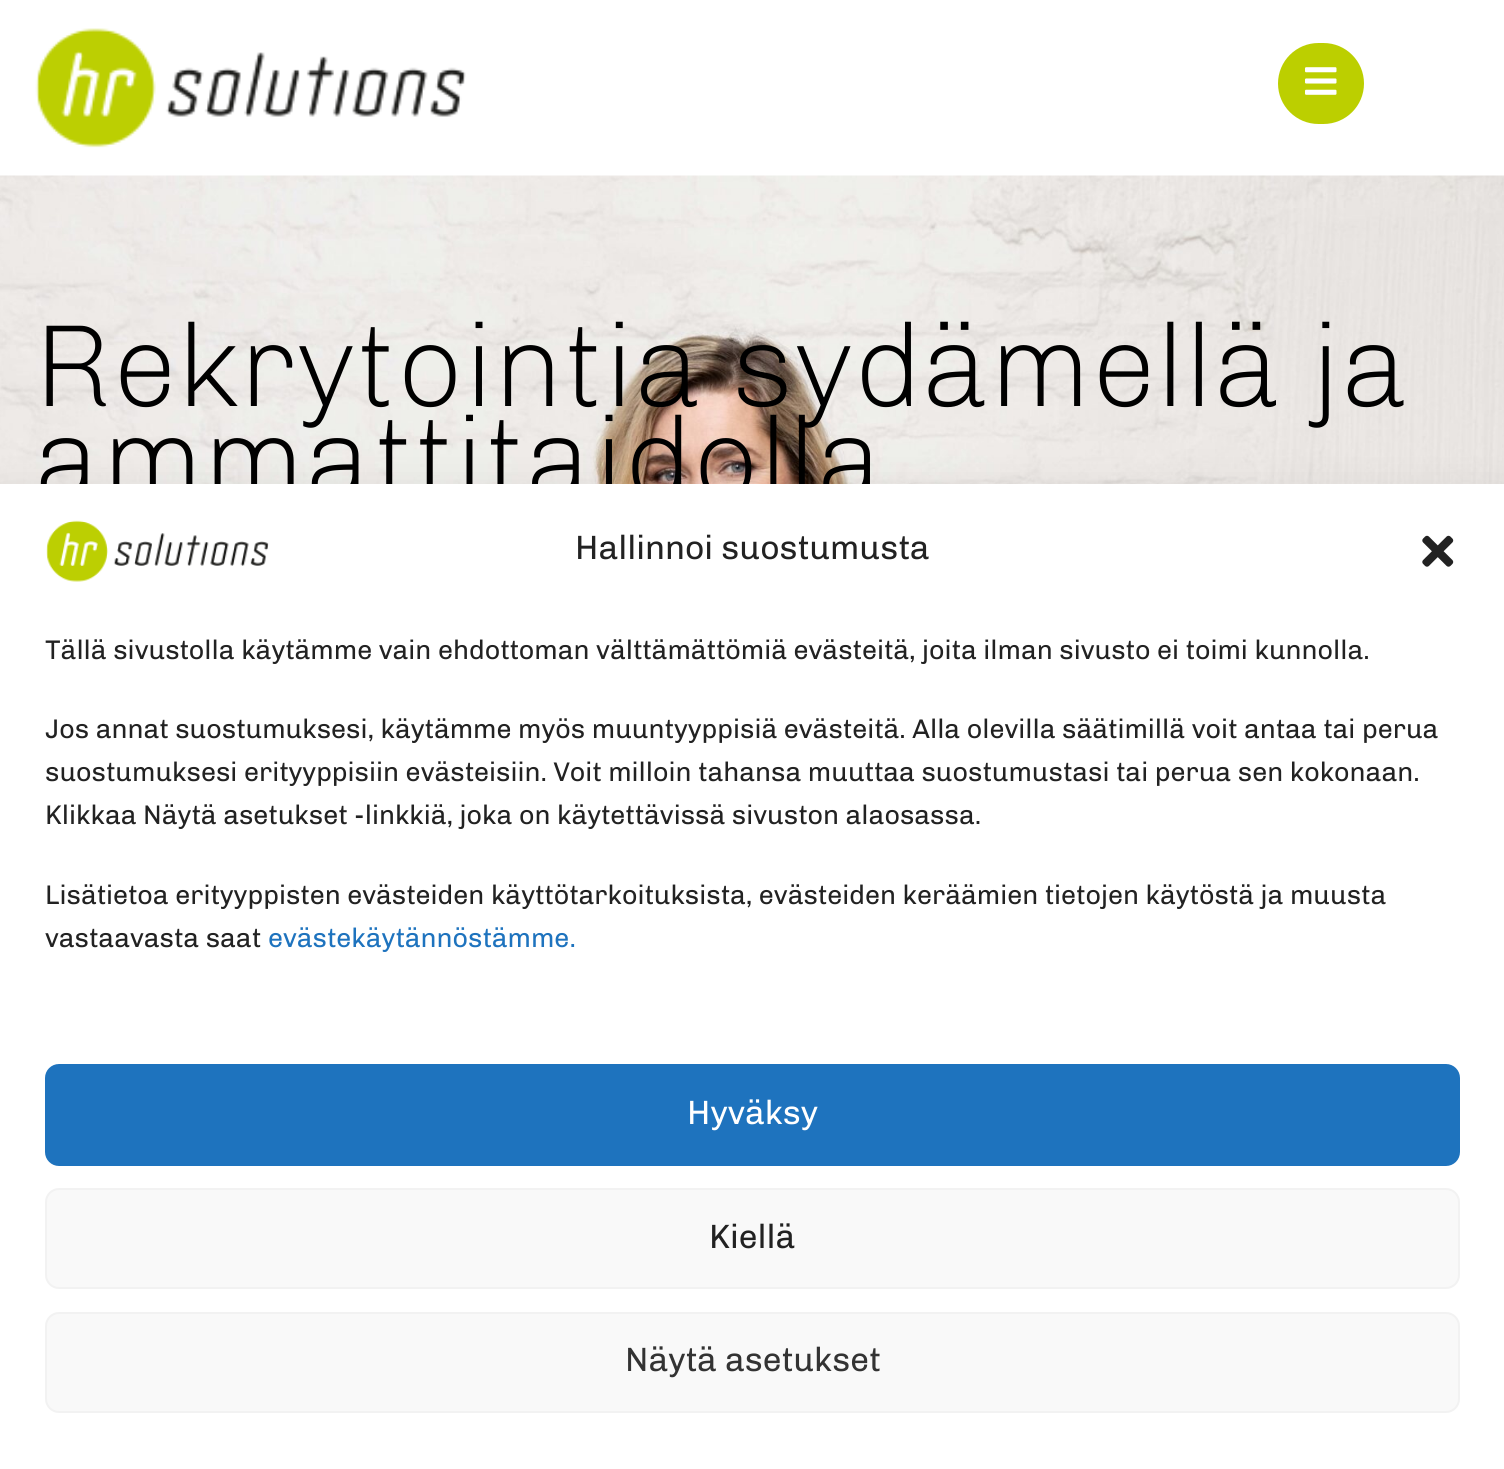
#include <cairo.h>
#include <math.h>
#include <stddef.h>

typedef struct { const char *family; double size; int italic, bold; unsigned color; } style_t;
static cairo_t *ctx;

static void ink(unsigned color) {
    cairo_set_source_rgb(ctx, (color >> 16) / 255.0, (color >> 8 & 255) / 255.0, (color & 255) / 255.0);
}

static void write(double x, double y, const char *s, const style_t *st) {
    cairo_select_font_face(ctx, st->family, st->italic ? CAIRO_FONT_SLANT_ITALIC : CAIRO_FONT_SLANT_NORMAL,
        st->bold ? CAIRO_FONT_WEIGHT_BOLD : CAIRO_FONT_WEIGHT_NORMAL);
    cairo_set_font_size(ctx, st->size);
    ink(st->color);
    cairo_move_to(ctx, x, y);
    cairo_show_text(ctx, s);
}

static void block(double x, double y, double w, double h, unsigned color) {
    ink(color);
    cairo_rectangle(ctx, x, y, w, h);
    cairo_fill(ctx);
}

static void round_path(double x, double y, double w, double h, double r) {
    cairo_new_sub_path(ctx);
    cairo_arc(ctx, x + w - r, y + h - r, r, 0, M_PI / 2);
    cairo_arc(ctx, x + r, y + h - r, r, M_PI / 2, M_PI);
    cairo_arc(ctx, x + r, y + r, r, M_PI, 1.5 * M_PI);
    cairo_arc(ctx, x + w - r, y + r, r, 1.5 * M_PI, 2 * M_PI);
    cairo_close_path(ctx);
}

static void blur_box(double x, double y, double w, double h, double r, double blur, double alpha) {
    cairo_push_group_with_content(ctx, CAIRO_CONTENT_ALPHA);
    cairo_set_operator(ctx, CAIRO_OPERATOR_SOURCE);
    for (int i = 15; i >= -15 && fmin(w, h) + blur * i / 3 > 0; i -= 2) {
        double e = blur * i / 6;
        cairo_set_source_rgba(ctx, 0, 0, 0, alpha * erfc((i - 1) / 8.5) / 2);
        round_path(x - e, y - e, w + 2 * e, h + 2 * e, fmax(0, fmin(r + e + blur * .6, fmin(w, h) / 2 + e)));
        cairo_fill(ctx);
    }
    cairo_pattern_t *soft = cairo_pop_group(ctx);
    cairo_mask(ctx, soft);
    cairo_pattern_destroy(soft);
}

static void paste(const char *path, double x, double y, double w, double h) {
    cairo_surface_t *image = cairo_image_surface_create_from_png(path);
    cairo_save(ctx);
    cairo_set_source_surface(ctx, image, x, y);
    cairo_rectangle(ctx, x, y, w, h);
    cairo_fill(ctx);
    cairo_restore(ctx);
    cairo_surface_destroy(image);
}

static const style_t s1 = {"Chivo Thin", 117, 0, 0, 0x000000};
static const style_t s2 = {"Chivo", 33.75, 0, 0, 0x222222};
static const style_t s3 = {"Chivo", 27, 0, 0, 0x222222};
static const style_t s4 = {"Chivo", 27, 0, 0, 0x1e73be};
static const style_t s5 = {"Chivo", 33.75, 0, 0, 0xffffff};
static const style_t s6 = {"Chivo", 33.75, 0, 0, 0x333333};

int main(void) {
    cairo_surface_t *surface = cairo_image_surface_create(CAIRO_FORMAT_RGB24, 1504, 1469);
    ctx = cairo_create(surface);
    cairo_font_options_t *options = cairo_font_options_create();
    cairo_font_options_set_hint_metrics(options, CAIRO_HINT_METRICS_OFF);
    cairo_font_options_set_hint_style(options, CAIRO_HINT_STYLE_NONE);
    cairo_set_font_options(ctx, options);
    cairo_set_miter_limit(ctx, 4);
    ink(0xffffff);
    cairo_paint(ctx);
    paste("pic1.png", 35, 28, 431, 120);
    ink(0xbccf00);
    round_path(1278, 43, 86, 81, 40.5);
    cairo_fill(ctx);
    paste("pic2.png", 1305, 67, 32, 28);
    paste("pic3.png", 0, 175, 1504, 309);
    write(34, 406, "Rekrytointia sydämellä ja", &s1);
    write(34, 499, "ammattitaidolla", &s1);
    ink(0x000000);
    blur_box(0, 506, 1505, 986, 0, 22.5, 0.19);
    block(0, 484, 1504, 985, 0xffffff);
    paste("pic4.png", 46, 520, 223, 62);
    write(575, 559, "Hallinnoi suostumusta", &s2);
    paste("pic5.png", 1422, 535, 32, 32);
    write(45, 659, "Tällä sivustolla käytämme vain ehdottoman välttämättömiä evästeitä, joita ilman sivusto ei toimi kunnolla.", &s3);
    write(45, 738, "Jos annat suostumuksesi, käytämme myös muuntyyppisiä evästeitä. Alla olevilla säätimillä voit antaa tai perua", &s3);
    write(45, 781, "suostumuksesi erityyppisiin evästeisiin. Voit milloin tahansa muuttaa suostumustasi tai perua sen kokonaan.", &s3);
    write(45, 824, "Klikkaa Näytä asetukset -linkkiä, joka on käytettävissä sivuston alaosassa.", &s3);
    write(45, 904, "Lisätietoa erityyppisten evästeiden käyttötarkoituksista, evästeiden keräämien tietojen käytöstä ja muusta", &s3);
    write(45, 947, "vastaavasta saat", &s3);
    write(268, 947, "evästekäytännöstämme.", &s4);
    round_path(46, 1065, 1413, 100, 13);
    cairo_fill_preserve(ctx);
    cairo_stroke(ctx);
    write(687, 1124, "Hyväksy", &s5);
    ink(0xf9f9f9);
    round_path(46, 1189, 1413, 99, 13);
    cairo_fill_preserve(ctx);
    ink(0xf2f2f2);
    cairo_stroke(ctx);
    write(709, 1248, "Kiellä", &s2);
    ink(0xf9f9f9);
    round_path(46, 1313, 1413, 99, 13);
    cairo_fill_preserve(ctx);
    ink(0xf2f2f2);
    cairo_stroke(ctx);
    write(625, 1371, "Näytä asetukset", &s6);
    cairo_surface_write_to_png(surface, "screenshot.png");
    cairo_font_options_destroy(options);
    cairo_destroy(ctx);
    cairo_surface_destroy(surface);
    return 0;
}
